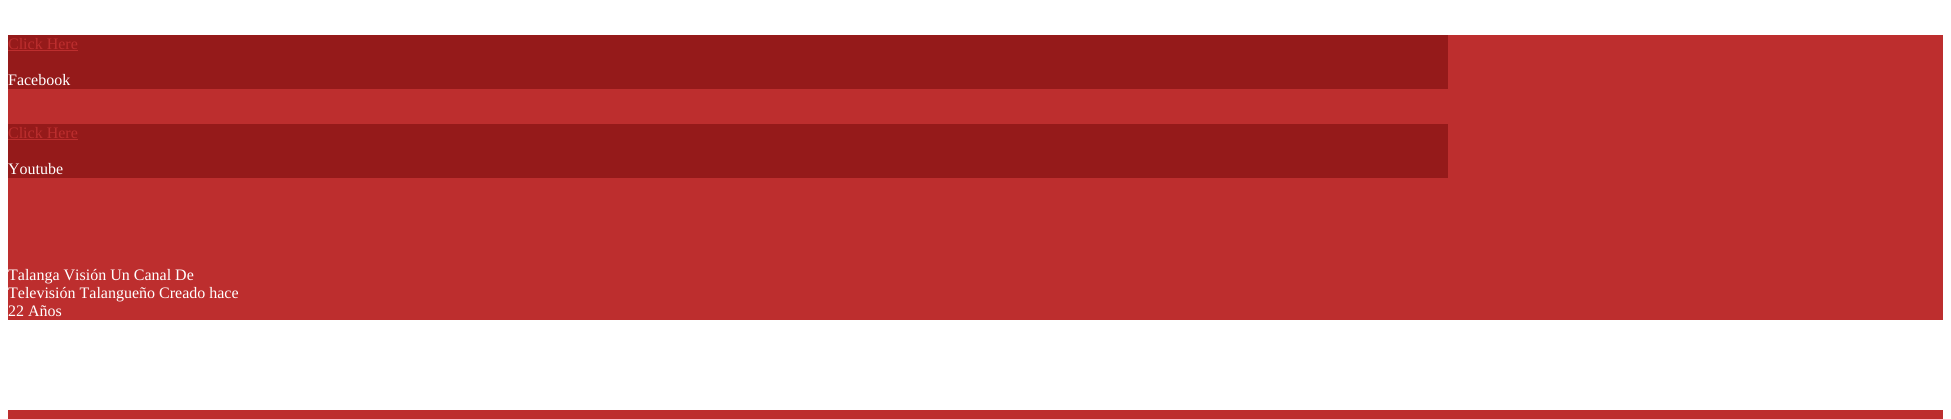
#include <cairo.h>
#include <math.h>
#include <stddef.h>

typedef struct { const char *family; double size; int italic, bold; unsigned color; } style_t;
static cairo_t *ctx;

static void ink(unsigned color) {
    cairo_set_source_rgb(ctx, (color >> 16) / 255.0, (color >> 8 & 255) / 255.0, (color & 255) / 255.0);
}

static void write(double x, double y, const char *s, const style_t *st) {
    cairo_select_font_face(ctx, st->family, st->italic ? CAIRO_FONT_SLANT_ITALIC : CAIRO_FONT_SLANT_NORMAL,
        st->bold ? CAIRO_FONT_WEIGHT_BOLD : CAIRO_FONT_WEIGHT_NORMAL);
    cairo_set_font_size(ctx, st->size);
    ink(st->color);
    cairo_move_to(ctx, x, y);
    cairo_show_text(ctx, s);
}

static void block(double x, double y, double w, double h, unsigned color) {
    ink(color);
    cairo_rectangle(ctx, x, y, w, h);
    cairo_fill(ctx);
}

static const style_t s1 = {"Liberation Serif", 16, 0, 0, 0xbd2e2e};
static const style_t s2 = {"Liberation Serif", 16, 0, 0, 0xffffff};

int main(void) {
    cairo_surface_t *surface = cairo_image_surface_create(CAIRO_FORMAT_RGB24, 1951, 419);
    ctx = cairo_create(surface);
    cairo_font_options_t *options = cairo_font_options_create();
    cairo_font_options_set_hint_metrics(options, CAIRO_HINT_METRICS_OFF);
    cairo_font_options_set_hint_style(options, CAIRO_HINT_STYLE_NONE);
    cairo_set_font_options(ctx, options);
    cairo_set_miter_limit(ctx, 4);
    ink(0xffffff);
    cairo_paint(ctx);
    block(8, 35, 1935, 285, 0xbd2e2e);
    block(8, 35, 1440, 54, 0x951a1a);
    write(8, 49, "Click Here", &s1);
    block(8, 50, 70, 1, 0xbd2e2e);
    write(8, 85, "Facebook", &s2);
    block(8, 124, 1440, 54, 0x951a1a);
    write(8, 138, "Click Here", &s1);
    block(8, 139, 70, 1, 0xbd2e2e);
    write(8, 174, "Youtube", &s2);
    write(8, 280, "Talanga Visión Un Canal De", &s2);
    write(8, 298, "Televisión Talangueño Creado hace", &s2);
    write(8, 316, "22 Años", &s2);
    block(8, 410, 1935, 9, 0xbd2e2e);
    cairo_surface_write_to_png(surface, "screenshot.png");
    cairo_font_options_destroy(options);
    cairo_destroy(ctx);
    cairo_surface_destroy(surface);
    return 0;
}
